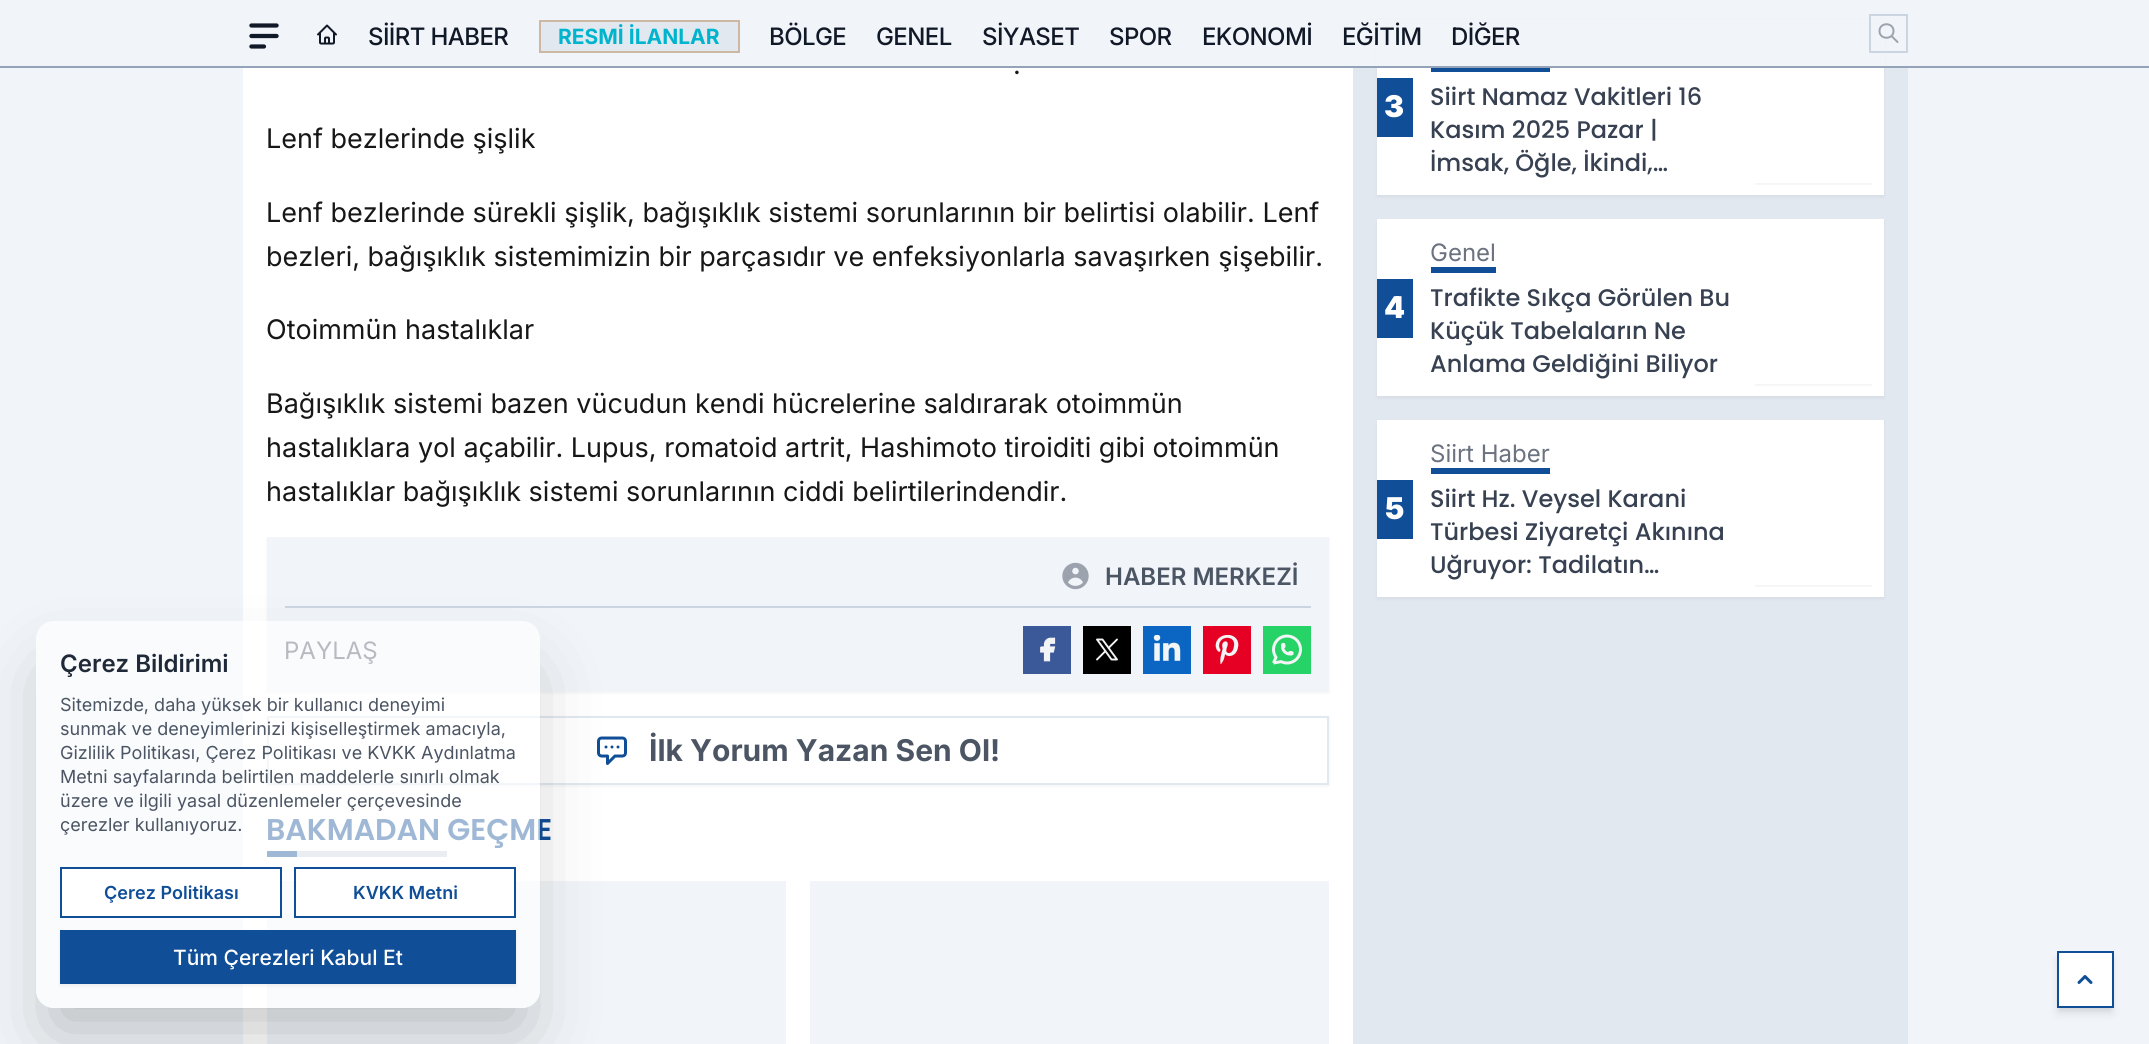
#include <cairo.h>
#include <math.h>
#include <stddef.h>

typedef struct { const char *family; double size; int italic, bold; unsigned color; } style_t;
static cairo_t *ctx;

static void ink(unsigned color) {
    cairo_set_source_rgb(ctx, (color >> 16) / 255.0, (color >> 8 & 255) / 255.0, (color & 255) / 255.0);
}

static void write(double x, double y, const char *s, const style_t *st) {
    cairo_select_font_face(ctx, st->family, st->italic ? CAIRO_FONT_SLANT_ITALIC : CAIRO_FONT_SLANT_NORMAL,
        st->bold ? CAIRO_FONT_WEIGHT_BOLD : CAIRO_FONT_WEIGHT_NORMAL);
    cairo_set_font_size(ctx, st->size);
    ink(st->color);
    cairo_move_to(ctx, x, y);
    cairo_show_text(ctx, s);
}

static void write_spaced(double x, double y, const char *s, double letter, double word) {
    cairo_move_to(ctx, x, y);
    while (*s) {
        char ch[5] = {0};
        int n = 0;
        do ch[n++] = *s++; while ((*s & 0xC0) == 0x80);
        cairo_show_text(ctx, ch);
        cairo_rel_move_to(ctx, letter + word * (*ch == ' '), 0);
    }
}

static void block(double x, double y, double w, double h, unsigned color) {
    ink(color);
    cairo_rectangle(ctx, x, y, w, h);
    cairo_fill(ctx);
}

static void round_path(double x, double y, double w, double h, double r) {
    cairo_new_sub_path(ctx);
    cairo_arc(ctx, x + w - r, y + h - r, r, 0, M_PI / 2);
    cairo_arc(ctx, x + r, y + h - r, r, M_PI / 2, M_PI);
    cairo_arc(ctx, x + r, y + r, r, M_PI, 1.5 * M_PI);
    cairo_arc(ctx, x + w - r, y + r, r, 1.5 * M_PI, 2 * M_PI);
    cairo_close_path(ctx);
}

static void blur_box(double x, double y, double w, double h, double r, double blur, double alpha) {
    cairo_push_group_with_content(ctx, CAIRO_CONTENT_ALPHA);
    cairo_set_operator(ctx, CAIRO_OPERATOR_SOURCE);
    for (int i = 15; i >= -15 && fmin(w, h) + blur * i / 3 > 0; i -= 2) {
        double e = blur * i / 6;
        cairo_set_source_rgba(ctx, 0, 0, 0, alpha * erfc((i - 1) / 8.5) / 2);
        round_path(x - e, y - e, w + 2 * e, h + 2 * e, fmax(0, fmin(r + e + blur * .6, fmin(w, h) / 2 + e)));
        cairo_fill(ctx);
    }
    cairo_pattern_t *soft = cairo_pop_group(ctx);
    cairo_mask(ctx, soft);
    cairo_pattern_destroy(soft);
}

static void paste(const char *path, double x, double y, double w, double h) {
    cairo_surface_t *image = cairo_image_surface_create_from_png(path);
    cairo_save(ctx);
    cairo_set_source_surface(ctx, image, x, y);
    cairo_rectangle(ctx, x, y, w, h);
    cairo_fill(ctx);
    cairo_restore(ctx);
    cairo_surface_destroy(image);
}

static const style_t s1 = {"Inter", 21, 0, 1, 0x00b4cd};
static const style_t s2 = {"Inter", 27, 0, 0, 0x171717};
static const style_t s3 = {"Inter SemiBold", 24, 0, 0, 0x4b5563};
static const style_t s4 = {"Inter", 24, 0, 0, 0x4b5563};
static const style_t s5 = {"Inter", 30, 0, 1, 0x4b5563};
static const style_t s6 = {"Poppins SemiBold", 30, 0, 0, 0x104e98};
static const style_t s7 = {"Inter Black", 30, 0, 0, 0xffffff};
static const style_t s8 = {"Poppins Medium", 24, 0, 0, 0x374151};
static const style_t s9 = {"Inter", 24, 0, 0, 0x6b7280};
static const style_t s10 = {"Inter SemiBold", 24, 0, 0, 0x1f2937};
static const style_t s11 = {"Inter", 18, 0, 0, 0x4b5563};
static const style_t s12 = {"Inter SemiBold", 18, 0, 0, 0x104e98};
static const style_t s13 = {"Inter Medium", 21, 0, 0, 0xffffff};

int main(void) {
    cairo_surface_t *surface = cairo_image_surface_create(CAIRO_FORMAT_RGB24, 2149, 1044);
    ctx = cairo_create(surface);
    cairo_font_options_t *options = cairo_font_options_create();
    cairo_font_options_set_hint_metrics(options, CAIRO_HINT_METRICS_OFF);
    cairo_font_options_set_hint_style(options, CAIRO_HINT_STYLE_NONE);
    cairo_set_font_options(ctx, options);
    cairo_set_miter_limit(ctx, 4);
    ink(0xf1f5f9);
    cairo_paint(ctx);
    block(1353, 68, 555, 976, 0xe2e8f0);
    ink(0x000000);
    blur_box(1377, 20, 507, 177, 0, 1.5, 0.05);
    block(1377, 68, 507, 127, 0xffffff);
    cairo_save(ctx);
    cairo_rectangle(ctx, 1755, 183, 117, 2);
    cairo_clip(ctx);
    ink(0x000000);
    blur_box(1755, 32, 117, 153, 0, 1.5, 0.05);
    cairo_restore(ctx);
    block(1376, 19, 509, 47, 0xf1f5f9);
    block(0, 66, 2149, 2, 0x94a3b8);
    paste("pic1.png", 249, 23, 30, 26);
    paste("pic2.png", 317, 24, 20, 21);
    cairo_select_font_face(ctx, "Inter Medium", CAIRO_FONT_SLANT_NORMAL, CAIRO_FONT_WEIGHT_NORMAL);
    cairo_set_font_size(ctx, 24);
    ink(0x111827);
    write_spaced(368, 45, "SİİRT HABER", -0.6, 0);
    ink(0xe2e8f0);
    cairo_rectangle(ctx, 540, 21, 199, 31);
    cairo_fill_preserve(ctx);
    ink(0xcdb8a3);
    cairo_stroke(ctx);
    write(558, 44, "RESMİ İLANLAR", &s1);
    cairo_select_font_face(ctx, "Inter Medium", CAIRO_FONT_SLANT_NORMAL, CAIRO_FONT_WEIGHT_NORMAL);
    cairo_set_font_size(ctx, 24);
    ink(0x111827);
    write_spaced(769, 45, "BÖLGE", -0.6, 0);
    write_spaced(876, 45, "GENEL", -0.6, 0);
    write_spaced(982, 45, "SİYASET", -0.6, 0);
    write_spaced(1109, 45, "SPOR", -0.6, 0);
    write_spaced(1202, 45, "EKONOMİ", -0.6, 0);
    write_spaced(1342, 45, "EĞİTİM", -0.6, 0);
    write_spaced(1451, 45, "DİĞER", -0.6, 0);
    cairo_rectangle(ctx, 1870, 15, 37, 37);
    ink(0xcbd5e1);
    cairo_stroke(ctx);
    cairo_new_path(ctx);
    cairo_move_to(ctx, 1897.5, 42);
    cairo_line_to(ctx, 1891.5, 36);
    cairo_move_to(ctx, 1893.5, 31);
    cairo_curve_to(ctx, 1893.5, 40, 1879.5, 40, 1879.5, 31);
    cairo_curve_to(ctx, 1879.5, 22, 1893.5, 22, 1893.5, 31);
    cairo_close_path(ctx);
    ink(0x9ca3af);
    cairo_set_line_cap(ctx, CAIRO_LINE_CAP_ROUND);
    cairo_set_line_join(ctx, CAIRO_LINE_JOIN_ROUND);
    cairo_stroke(ctx);
    block(243, 68, 1110, 976, 0xffffff);
    write(1013, 74, ".", &s2);
    write(266, 148, "Lenf bezlerinde şişlik", &s2);
    write(266, 222, "Lenf bezlerinde sürekli şişlik, bağışıklık sistemi sorunlarının bir belirtisi olabilir. Lenf", &s2);
    write(266, 266, "bezleri, bağışıklık sistemimizin bir parçasıdır ve enfeksiyonlarla savaşırken şişebilir.", &s2);
    write(266, 339, "Otoimmün hastalıklar", &s2);
    write(266, 413, "Bağışıklık sistemi bazen vücudun kendi hücrelerine saldırarak otoimmün", &s2);
    write(266, 457, "hastalıklara yol açabilir. Lupus, romatoid artrit, Hashimoto tiroiditi gibi otoimmün", &s2);
    write(266, 501, "hastalıklar bağışıklık sistemi sorunlarının ciddi belirtilerindendir.", &s2);
    ink(0x000000);
    blur_box(267, 539, 1062, 154, 0, 1.5, 0.05);
    block(267, 537, 1062, 155, 0xf1f5f9);
    block(285, 606, 1026, 2, 0xcbd5e1);
    paste("pic3.png", 1062, 562, 27, 28);
    write(1105, 585, "HABER MERKEZİ", &s3);
    write(284, 659, "PAYLAŞ", &s4);
    block(1023, 626, 48, 48, 0x3b5998);
    paste("pic4.png", 1040, 637, 16, 25);
    block(1083, 626, 48, 48, 0x000000);
    cairo_new_path(ctx);
    cairo_move_to(ctx, 1097, 639.5);
    cairo_line_to(ctx, 1111.5, 659.5);
    cairo_line_to(ctx, 1117, 659.5);
    cairo_line_to(ctx, 1102.5, 639.5);
    cairo_close_path(ctx);
    cairo_move_to(ctx, 1097, 659.5);
    cairo_line_to(ctx, 1105.5, 651);
    cairo_move_to(ctx, 1108.5, 648);
    cairo_line_to(ctx, 1117, 639.5);
    ink(0xf3f4f6);
    cairo_set_line_width(ctx, 1.9);
    cairo_stroke(ctx);
    block(1143, 626, 48, 48, 0x0a66c2);
    paste("pic5.png", 1153, 635, 28, 26);
    block(1203, 626, 48, 48, 0xe60023);
    paste("pic6.png", 1215, 635, 24, 30);
    block(1263, 626, 48, 48, 0x25d366);
    paste("pic7.png", 1272, 634, 30, 31);
    ink(0x000000);
    blur_box(267, 717, 1062, 69, 0, 1.5, 0.05);
    ink(0xffffff);
    cairo_rectangle(ctx, 268, 717, 1060, 67);
    cairo_fill_preserve(ctx);
    ink(0xe2e8f0);
    cairo_set_line_width(ctx, 2);
    cairo_set_line_cap(ctx, CAIRO_LINE_CAP_BUTT);
    cairo_set_line_join(ctx, CAIRO_LINE_JOIN_MITER);
    cairo_stroke(ctx);
    paste("pic8.png", 597, 736, 30, 29);
    write(649, 761, "İlk Yorum Yazan Sen Ol!", &s5);
    write(266, 840, "BAKMADAN GEÇME", &s6);
    block(267, 851, 30, 6, 0x104e98);
    block(297, 851, 150, 6, 0xcbd5e1);
    block(267, 881, 519, 163, 0xf1f5f9);
    block(810, 881, 519, 163, 0xf1f5f9);
    block(1377, 78, 36, 59, 0x104e98);
    write(1384, 117, "3", &s7);
    block(1431, 68, 119, 4, 0x104e98);
    write(1430, 105, "Siirt Namaz Vakitleri 16", &s8);
    write(1430, 138, "Kasım 2025 Pazar |", &s8);
    write(1430, 171, "İmsak, Öğle, İkindi,…", &s8);
    ink(0x000000);
    blur_box(1377, 221, 507, 177, 0, 1.5, 0.05);
    block(1377, 219, 507, 177, 0xffffff);
    block(1377, 279, 36, 59, 0x104e98);
    write(1384, 318, "4", &s7);
    write(1430, 261, "Genel", &s9);
    block(1431, 267, 65, 6, 0x104e98);
    write(1430, 306, "Trafikte Sıkça Görülen Bu", &s8);
    write(1430, 339, "Küçük Tabelaların Ne", &s8);
    write(1430, 372, "Anlama Geldiğini Biliyor", &s8);
    cairo_save(ctx);
    cairo_rectangle(ctx, 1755, 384, 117, 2);
    cairo_clip(ctx);
    ink(0x000000);
    blur_box(1755, 233, 117, 153, 0, 1.5, 0.05);
    cairo_restore(ctx);
    ink(0x000000);
    blur_box(1377, 422, 507, 177, 0, 1.5, 0.05);
    block(1377, 420, 507, 177, 0xffffff);
    block(1377, 480, 36, 59, 0x104e98);
    write(1385, 519, "5", &s7);
    write(1430, 462, "Siirt Haber", &s9);
    block(1431, 468, 119, 6, 0x104e98);
    write(1430, 507, "Siirt Hz. Veysel Karani", &s8);
    write(1430, 540, "Türbesi Ziyaretçi Akınına", &s8);
    write(1430, 573, "Uğruyor: Tadilatın…", &s8);
    cairo_save(ctx);
    cairo_rectangle(ctx, 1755, 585, 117, 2);
    cairo_clip(ctx);
    ink(0x000000);
    blur_box(1755, 434, 117, 153, 0, 1.5, 0.05);
    cairo_restore(ctx);
    cairo_save(ctx);
    cairo_set_fill_rule(ctx, CAIRO_FILL_RULE_EVEN_ODD);
    cairo_new_path(ctx);
    cairo_move_to(ctx, 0, 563);
    cairo_line_to(ctx, 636, 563);
    cairo_line_to(ctx, 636, 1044);
    cairo_line_to(ctx, 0, 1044);
    cairo_close_path(ctx);
    cairo_move_to(ctx, 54, 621);
    cairo_line_to(ctx, 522, 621);
    cairo_curve_to(ctx, 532, 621, 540, 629, 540, 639);
    cairo_line_to(ctx, 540, 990);
    cairo_curve_to(ctx, 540, 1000, 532, 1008, 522, 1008);
    cairo_line_to(ctx, 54, 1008);
    cairo_curve_to(ctx, 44, 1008, 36, 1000, 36, 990);
    cairo_line_to(ctx, 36, 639);
    cairo_curve_to(ctx, 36, 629, 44, 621, 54, 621);
    cairo_close_path(ctx);
    cairo_clip(ctx);
    ink(0x000000);
    blur_box(54, 677, 468, 351, 0, 37.5, 0.25);
    cairo_restore(ctx);
    cairo_set_source_rgba(ctx, 1, 1, 1, 0.6);
    round_path(36, 621, 504, 387, 18);
    cairo_fill(ctx);
    write(60, 672, "Çerez Bildirimi", &s10);
    write(60, 711, "Sitemizde, daha yüksek bir kullanıcı deneyimi", &s11);
    write(60, 735, "sunmak ve deneyimlerinizi kişiselleştirmek amacıyla,", &s11);
    write(60, 759, "Gizlilik Politikası, Çerez Politikası ve KVKK Aydınlatma", &s11);
    write(60, 783, "Metni sayfalarında belirtilen maddelerle sınırlı olmak", &s11);
    write(60, 807, "üzere ve ilgili yasal düzenlemeler çerçevesinde", &s11);
    write(60, 831, "çerezler kullanıyoruz.", &s11);
    ink(0xffffff);
    cairo_rectangle(ctx, 61, 868, 220, 49);
    cairo_fill_preserve(ctx);
    ink(0x104e98);
    cairo_stroke(ctx);
    write(104, 899, "Çerez Politikası", &s12);
    block(296, 881, 218, 35, 0xffffff);
    cairo_rectangle(ctx, 295, 868, 220, 49);
    ink(0x104e98);
    cairo_stroke(ctx);
    write(353, 899, "KVKK Metni", &s12);
    ink(0x000000);
    blur_box(60, 932, 456, 54, 0, 1.5, 0.05);
    block(60, 930, 456, 54, 0x104e98);
    write(173, 965, "Tüm Çerezleri Kabul Et", &s13);
    ink(0x000000);
    blur_box(2060, 957, 51, 51, 0, 3, 0.1);
    blur_box(2058, 959, 54, 54, 0, 4.5, 0.1);
    ink(0xffffff);
    cairo_rectangle(ctx, 2058, 952, 55, 55);
    cairo_fill_preserve(ctx);
    ink(0x104e98);
    cairo_stroke(ctx);
    paste("pic9.png", 2077, 975, 16, 9);
    cairo_surface_write_to_png(surface, "screenshot.png");
    cairo_font_options_destroy(options);
    cairo_destroy(ctx);
    cairo_surface_destroy(surface);
    return 0;
}
